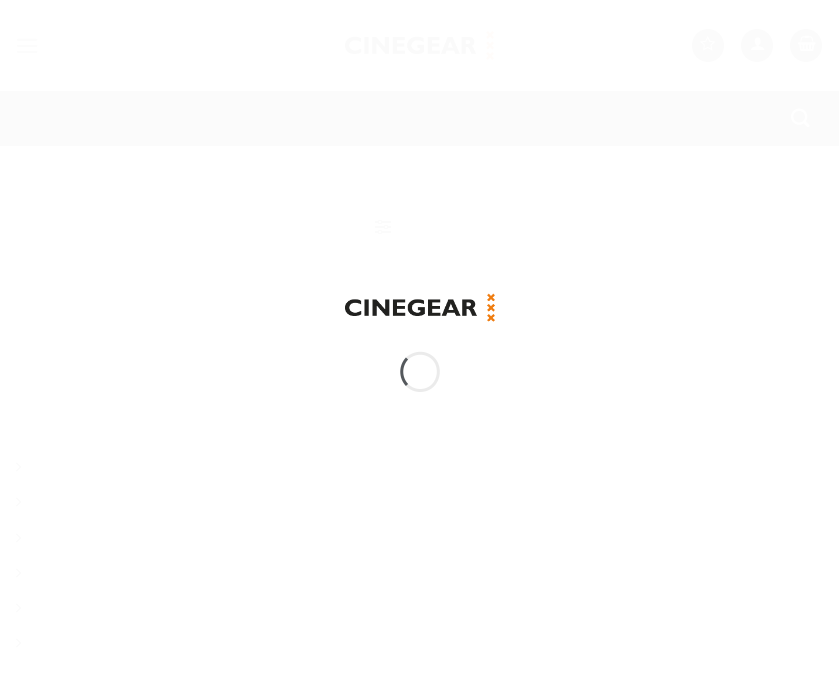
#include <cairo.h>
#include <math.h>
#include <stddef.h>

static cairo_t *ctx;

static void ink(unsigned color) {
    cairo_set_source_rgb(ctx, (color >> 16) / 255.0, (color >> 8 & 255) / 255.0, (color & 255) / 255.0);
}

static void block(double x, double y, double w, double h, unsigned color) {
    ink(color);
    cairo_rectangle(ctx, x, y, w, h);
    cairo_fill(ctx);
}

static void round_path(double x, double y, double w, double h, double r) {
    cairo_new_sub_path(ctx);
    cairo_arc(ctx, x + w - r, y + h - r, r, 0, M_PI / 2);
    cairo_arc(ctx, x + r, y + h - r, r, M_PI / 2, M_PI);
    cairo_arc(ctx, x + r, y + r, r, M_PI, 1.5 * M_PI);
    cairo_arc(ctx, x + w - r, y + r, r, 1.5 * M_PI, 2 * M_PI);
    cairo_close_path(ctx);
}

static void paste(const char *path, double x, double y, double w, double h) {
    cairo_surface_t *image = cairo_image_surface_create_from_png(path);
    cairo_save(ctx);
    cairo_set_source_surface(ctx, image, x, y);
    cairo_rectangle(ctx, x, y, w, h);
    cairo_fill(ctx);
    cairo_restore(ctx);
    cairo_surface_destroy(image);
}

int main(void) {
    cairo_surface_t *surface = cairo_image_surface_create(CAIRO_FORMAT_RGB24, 839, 685);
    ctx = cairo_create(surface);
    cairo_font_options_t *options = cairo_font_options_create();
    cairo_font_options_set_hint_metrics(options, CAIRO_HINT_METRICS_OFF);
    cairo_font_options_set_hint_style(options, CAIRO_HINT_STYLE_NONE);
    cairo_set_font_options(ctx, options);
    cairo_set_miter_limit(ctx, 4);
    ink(0xffffff);
    cairo_paint(ctx);
    paste("pic1.png", 17, 38, 21, 15);
    paste("pic2.png", 345, 31, 149, 29);
    ink(0xfbfbfb);
    round_path(692, 29, 32, 33, 16);
    cairo_fill(ctx);
    paste("pic3.png", 700, 36, 16, 15);
    round_path(741, 29, 32, 33, 16);
    cairo_fill(ctx);
    paste("pic4.png", 751, 37, 14, 13);
    round_path(790, 29, 32, 33, 16);
    cairo_fill(ctx);
    paste("pic5.png", 798, 35, 18, 17);
    block(0, 91, 839, 55, 0xfbfbfb);
    paste("pic6.png", 791, 108, 19, 20);
    paste("pic7.png", 375, 220, 16, 14);
    paste("pic8.png", 345, 293, 150, 29);
    cairo_new_path(ctx);
    cairo_move_to(ctx, 407, 358.5);
    cairo_curve_to(ctx, 411.5, 354.5, 417.5, 352.5, 423.5, 353.5);
    cairo_curve_to(ctx, 445.5, 358, 442, 390.5, 420, 390.5);
    cairo_curve_to(ctx, 415, 390.5, 410.5, 388.5, 407, 385);
    ink(0xebebeb);
    cairo_set_line_width(ctx, 3);
    cairo_stroke(ctx);
    cairo_new_path(ctx);
    cairo_move_to(ctx, 407, 385);
    cairo_curve_to(ctx, 400, 377.5, 400, 366, 407, 358.5);
    cairo_set_source_rgba(ctx, 0.145, 0.161, 0.184, 0.78);
    cairo_stroke(ctx);
    paste("pic9.png", 16, 462, 6, 10);
    paste("pic9.png", 16, 497, 6, 10);
    paste("pic9.png", 16, 533, 6, 10);
    paste("pic9.png", 16, 568, 6, 10);
    paste("pic9.png", 16, 603, 6, 10);
    paste("pic9.png", 16, 638, 6, 10);
    cairo_surface_write_to_png(surface, "screenshot.png");
    cairo_font_options_destroy(options);
    cairo_destroy(ctx);
    cairo_surface_destroy(surface);
    return 0;
}
